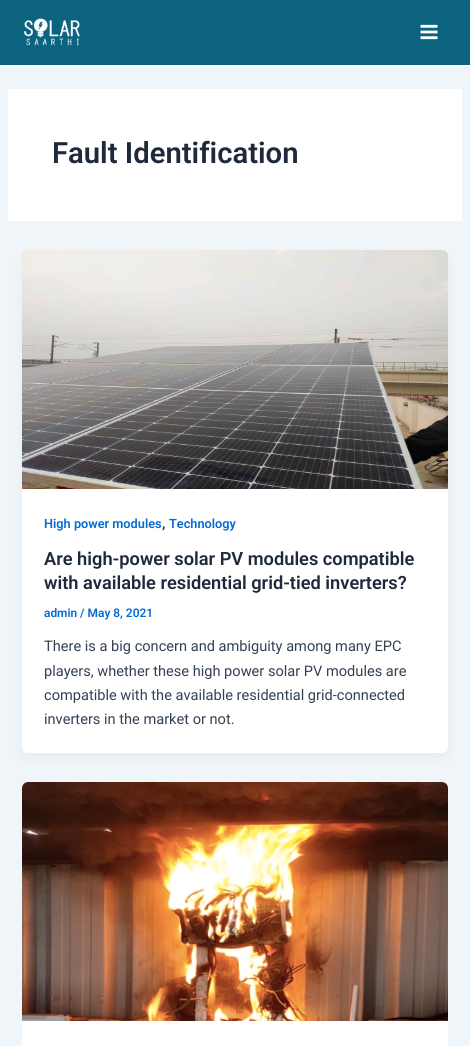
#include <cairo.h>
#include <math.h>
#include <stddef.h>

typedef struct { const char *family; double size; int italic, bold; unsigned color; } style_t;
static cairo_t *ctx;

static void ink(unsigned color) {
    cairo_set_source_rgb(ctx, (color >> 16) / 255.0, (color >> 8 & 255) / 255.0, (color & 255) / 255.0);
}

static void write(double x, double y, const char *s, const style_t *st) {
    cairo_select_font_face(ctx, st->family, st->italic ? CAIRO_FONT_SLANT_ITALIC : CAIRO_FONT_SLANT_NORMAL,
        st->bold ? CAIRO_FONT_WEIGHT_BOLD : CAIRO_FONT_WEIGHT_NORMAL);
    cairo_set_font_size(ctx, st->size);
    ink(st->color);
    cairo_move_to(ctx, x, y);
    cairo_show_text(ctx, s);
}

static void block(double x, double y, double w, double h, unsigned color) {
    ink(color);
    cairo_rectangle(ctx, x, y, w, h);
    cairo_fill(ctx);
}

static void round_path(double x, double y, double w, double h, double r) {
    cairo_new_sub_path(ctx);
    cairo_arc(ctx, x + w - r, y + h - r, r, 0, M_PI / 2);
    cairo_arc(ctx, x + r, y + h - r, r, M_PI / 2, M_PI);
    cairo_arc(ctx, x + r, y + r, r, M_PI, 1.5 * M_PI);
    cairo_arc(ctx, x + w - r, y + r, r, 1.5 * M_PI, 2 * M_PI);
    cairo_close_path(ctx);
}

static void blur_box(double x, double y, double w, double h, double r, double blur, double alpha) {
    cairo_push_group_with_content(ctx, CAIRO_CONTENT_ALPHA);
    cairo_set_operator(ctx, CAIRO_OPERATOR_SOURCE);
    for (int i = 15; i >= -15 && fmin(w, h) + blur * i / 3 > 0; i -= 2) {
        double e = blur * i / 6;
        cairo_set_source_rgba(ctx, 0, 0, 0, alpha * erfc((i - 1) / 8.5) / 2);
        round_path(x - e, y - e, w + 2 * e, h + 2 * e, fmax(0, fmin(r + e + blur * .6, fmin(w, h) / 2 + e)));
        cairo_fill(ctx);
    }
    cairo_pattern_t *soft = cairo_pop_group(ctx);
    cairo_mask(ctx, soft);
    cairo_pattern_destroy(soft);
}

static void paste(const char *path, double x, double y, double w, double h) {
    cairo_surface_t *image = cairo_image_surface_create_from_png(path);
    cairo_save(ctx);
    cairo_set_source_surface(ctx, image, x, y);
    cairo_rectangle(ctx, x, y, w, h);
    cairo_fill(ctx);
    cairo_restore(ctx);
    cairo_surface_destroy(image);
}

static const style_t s1 = {"Roboto SemiBold", 29.25, 0, 0, 0x1e293b};
static const style_t s2 = {"Roboto SemiBold", 12.75, 0, 0, 0x046bd2};
static const style_t s3 = {"Roboto SemiBold", 14.6, 0, 0, 0x334155};
static const style_t s4 = {"Roboto SemiBold", 18.25, 0, 0, 0x1e293b};
static const style_t s5 = {"Roboto SemiBold", 11.9, 0, 0, 0x046bd2};
static const style_t s6 = {"Roboto", 14.6, 0, 0, 0x334155};

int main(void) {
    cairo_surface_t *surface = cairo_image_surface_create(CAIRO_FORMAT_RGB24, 470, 1046);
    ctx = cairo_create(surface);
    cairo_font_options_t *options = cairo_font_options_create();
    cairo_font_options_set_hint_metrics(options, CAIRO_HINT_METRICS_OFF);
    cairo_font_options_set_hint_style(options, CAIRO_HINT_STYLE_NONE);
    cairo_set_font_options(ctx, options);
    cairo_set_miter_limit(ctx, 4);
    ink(0xf0f5fa);
    cairo_paint(ctx);
    block(0, 0, 470, 65, 0x0b6380);
    block(0, 65, 470, 2, 0xffffff);
    paste("pic1.png", 23, 18, 57, 28);
    paste("pic2.png", 420, 24, 18, 16);
    block(8, 89, 454, 132, 0xffffff);
    write(52, 163, "Fault Identification", &s1);
    ink(0x101828);
    blur_box(24, 258, 422, 499, 4, 7.5, 0.05);
    ink(0xffffff);
    round_path(22, 250, 426, 503, 6);
    cairo_fill(ctx);
    paste("pic3.png", 22, 250, 426, 239);
    write(44, 528, "High power modules", &s2);
    write(162, 528, ",", &s3);
    write(169, 528, "Technology", &s2);
    write(44, 565, "Are high-power solar PV modules compatible", &s4);
    write(44, 589, "with available residential grid-tied inverters?", &s4);
    write(44, 617, "admin / May 8, 2021", &s5);
    write(44, 651, "There is a big concern and ambiguity among many EPC", &s6);
    write(44, 676, "players, whether these high power solar PV modules are", &s6);
    write(44, 700, "compatible with the available residential grid-connected", &s6);
    write(44, 724, "inverters in the market or not.", &s6);
    ink(0xffffff);
    round_path(22, 782, 426, 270, 6);
    cairo_fill(ctx);
    paste("pic4.png", 22, 782, 426, 239);
    cairo_surface_write_to_png(surface, "screenshot.png");
    cairo_font_options_destroy(options);
    cairo_destroy(ctx);
    cairo_surface_destroy(surface);
    return 0;
}
